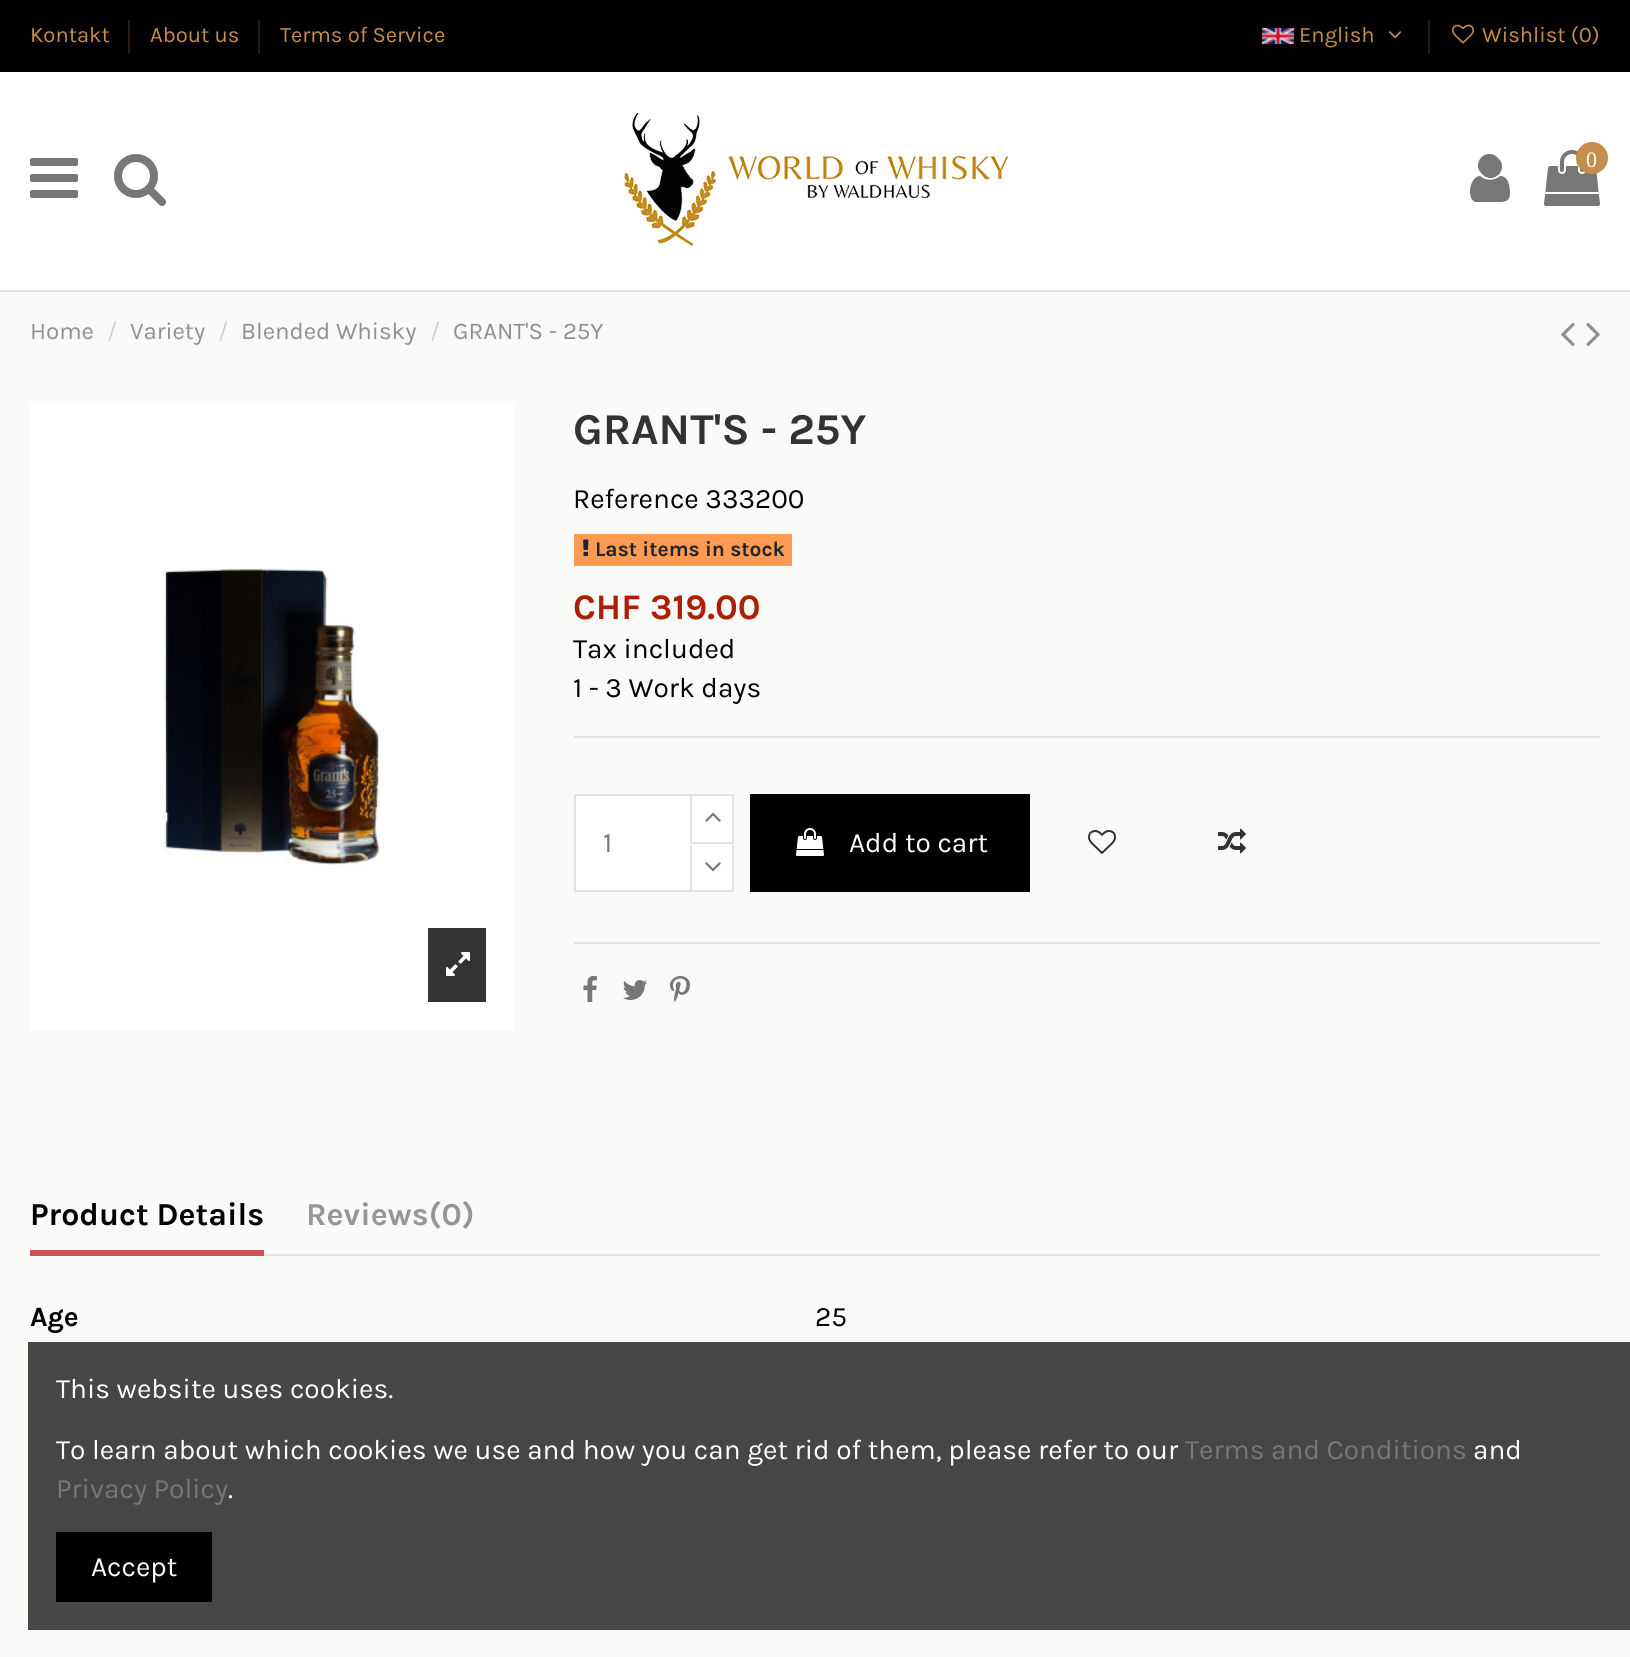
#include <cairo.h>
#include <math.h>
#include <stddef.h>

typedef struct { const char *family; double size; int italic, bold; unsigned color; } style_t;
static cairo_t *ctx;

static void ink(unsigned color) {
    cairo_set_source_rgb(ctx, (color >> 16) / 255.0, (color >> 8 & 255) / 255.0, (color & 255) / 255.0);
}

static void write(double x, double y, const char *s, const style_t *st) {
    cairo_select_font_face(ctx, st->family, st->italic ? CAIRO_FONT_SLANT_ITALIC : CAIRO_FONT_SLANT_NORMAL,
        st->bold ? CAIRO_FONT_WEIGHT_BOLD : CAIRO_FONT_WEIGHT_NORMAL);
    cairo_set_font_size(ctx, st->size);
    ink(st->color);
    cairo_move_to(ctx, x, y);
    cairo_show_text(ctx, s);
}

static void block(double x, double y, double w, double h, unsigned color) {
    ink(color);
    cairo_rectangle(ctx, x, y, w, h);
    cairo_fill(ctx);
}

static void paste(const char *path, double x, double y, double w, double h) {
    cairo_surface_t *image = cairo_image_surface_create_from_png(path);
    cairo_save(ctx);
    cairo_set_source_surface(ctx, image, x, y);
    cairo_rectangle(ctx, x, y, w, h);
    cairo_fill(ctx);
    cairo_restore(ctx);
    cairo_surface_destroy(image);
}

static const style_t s1 = {"Karla", 22, 0, 0, 0xc48e4c};
static const style_t s2 = {"Liberation Serif", 22, 0, 0, 0xffffff};
static const style_t s3 = {"Karla", 24, 0, 0, 0x8f8f8f};
static const style_t s4 = {"Karla", 24, 0, 0, 0xcfcfcf};
static const style_t s5 = {"Karla", 44, 0, 1, 0x333333};
static const style_t s6 = {"Karla", 28, 0, 0, 0x000000};
static const style_t s7 = {"Karla", 21, 0, 1, 0x212529};
static const style_t s8 = {"Karla", 36, 0, 1, 0xad1f00};
static const style_t s9 = {"Karla", 28, 0, 0, 0x777777};
static const style_t s10 = {"Karla", 28, 0, 0, 0xffffff};
static const style_t s11 = {"Karla", 32, 0, 1, 0x000000};
static const style_t s12 = {"Karla", 32, 0, 1, 0x969695};
static const style_t s13 = {"Karla", 28, 0, 1, 0x000000};

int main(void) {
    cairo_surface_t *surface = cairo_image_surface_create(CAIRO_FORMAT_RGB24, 1630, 1657);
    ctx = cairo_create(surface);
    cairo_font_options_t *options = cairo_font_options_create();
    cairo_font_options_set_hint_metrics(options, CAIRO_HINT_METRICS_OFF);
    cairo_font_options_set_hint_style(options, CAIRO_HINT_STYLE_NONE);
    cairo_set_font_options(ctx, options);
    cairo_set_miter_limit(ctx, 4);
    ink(0xffffff);
    cairo_paint(ctx);
    block(0, 0, 1630, 72, 0x000000);
    write(30, 42, "Kontakt", &s1);
    block(128, 20, 2, 34, 0x271c0f);
    write(150, 42, "About us", &s1);
    block(258, 20, 2, 34, 0x271c0f);
    write(280, 42, "Terms of Service", &s1);
    paste("pic1.png", 1262, 28, 32, 16);
    write(1299, 42, "English", &s1);
    paste("pic2.png", 1389, 31, 13, 8);
    block(1428, 20, 2, 34, 0x271c0f);
    paste("pic3.png", 1452, 24, 22, 20);
    write(1482, 42, "Wishlist (0)", &s1);
    block(0, 290, 1630, 2, 0xe3e3e3);
    paste("pic4.png", 30, 158, 48, 40);
    paste("pic5.png", 114, 154, 52, 52);
    paste("pic6.png", 624, 113, 384, 134);
    ink(0x777777);
    cairo_new_path(ctx);
    cairo_move_to(ctx, 1510, 194);
    cairo_curve_to(ctx, 1510, 201, 1505, 202, 1499, 202);
    cairo_line_to(ctx, 1475, 202);
    cairo_curve_to(ctx, 1466, 198, 1470, 176, 1480, 176);
    cairo_curve_to(ctx, 1486, 181, 1494, 181, 1500, 176);
    cairo_curve_to(ctx, 1509, 176, 1510, 187, 1510, 194);
    cairo_close_path(ctx);
    cairo_move_to(ctx, 1498, 158);
    cairo_curve_to(ctx, 1510, 169, 1493, 186, 1482, 174);
    cairo_curve_to(ctx, 1470, 163, 1487, 146, 1498, 158);
    cairo_close_path(ctx);
    cairo_fill(ctx);
    paste("pic7.png", 1544, 150, 56, 56);
    ink(0xc48e4c);
    cairo_arc(ctx, 1592, 158, 16, 0, 2 * M_PI);
    cairo_fill(ctx);
    write(1586, 167, "0", &s2);
    block(0, 292, 1630, 1365, 0xfafaf9);
    write(30, 339, "Home", &s3);
    write(107, 339, "/", &s4);
    write(130, 339, "Variety", &s3);
    write(218, 339, "/", &s4);
    write(241, 339, "Blended Whisky", &s3);
    write(430, 339, "/", &s4);
    write(453, 339, "GRANT'S - 25Y", &s3);
    paste("pic8.png", 1561, 322, 14, 25);
    paste("pic9.png", 1586, 322, 14, 25);
    paste("pic10.png", 30, 404, 484, 626);
    block(428, 928, 58, 74, 0x333333);
    paste("pic11.png", 446, 952, 24, 24);
    block(574, 736, 1026, 2, 0xe4e4e3);
    write(573, 444, "GRANT'S - 25Y", &s5);
    write(573, 508, "Reference 333200", &s6);
    block(574, 534, 218, 32, 0xff9a52);
    paste("pic12.png", 583, 539, 6, 17);
    write(595, 556, "Last items in stock", &s7);
    write(573, 619, "CHF 319.00", &s8);
    write(573, 658, "Tax included", &s6);
    write(573, 697, "1 - 3 Work days", &s6);
    ink(0xffffff);
    cairo_rectangle(ctx, 575, 795, 116, 96);
    cairo_fill_preserve(ctx);
    ink(0xe3e3e3);
    cairo_stroke(ctx);
    write(603, 852, "1", &s9);
    ink(0xffffff);
    cairo_rectangle(ctx, 691, 795, 42, 48);
    cairo_fill_preserve(ctx);
    ink(0xe3e3e3);
    cairo_stroke(ctx);
    paste("pic13.png", 705, 812, 16, 10);
    block(690, 844, 44, 46, 0xffffff);
    ink(0xe3e3e3);
    cairo_new_path(ctx);
    cairo_move_to(ctx, 734, 844);
    cairo_line_to(ctx, 734, 892);
    cairo_line_to(ctx, 732, 890);
    cairo_line_to(ctx, 732, 846);
    cairo_close_path(ctx);
    cairo_fill(ctx);
    block(690, 890, 44, 2, 0xe3e3e3);
    cairo_new_path(ctx);
    cairo_move_to(ctx, 690, 892);
    cairo_line_to(ctx, 690, 844);
    cairo_line_to(ctx, 692, 846);
    cairo_line_to(ctx, 692, 890);
    cairo_close_path(ctx);
    cairo_fill(ctx);
    paste("pic14.png", 705, 862, 16, 10);
    block(750, 794, 280, 98, 0x000000);
    paste("pic15.png", 796, 828, 28, 28);
    write(849, 852, "Add to cart", &s10);
    paste("pic16.png", 1088, 830, 28, 24);
    paste("pic17.png", 1218, 828, 28, 26);
    block(574, 942, 1026, 2, 0xe4e4e3);
    paste("pic18.png", 583, 976, 14, 26);
    paste("pic19.png", 623, 980, 25, 20);
    paste("pic20.png", 670, 976, 20, 26);
    block(264, 1254, 1336, 2, 0xe4e4e3);
    block(30, 1250, 234, 6, 0xca5058);
    write(30, 1225, "Product Details", &s11);
    write(306, 1225, "Reviews(0)", &s12);
    write(30, 1326, "Age", &s13);
    write(815, 1326, "25", &s6);
    block(28, 1342, 1602, 288, 0x464646);
    write(56, 1398, "This website uses cookies.", &s10);
    write(56, 1459, "To learn about which cookies we use and how you can get rid of them, please refer to our", &s10);
    write(1185, 1459, "Terms and Conditions", &s9);
    write(1473, 1459, "and", &s10);
    write(56, 1498, "Privacy Policy", &s9);
    write(228, 1498, ".", &s10);
    block(56, 1532, 156, 70, 0x000000);
    write(91, 1576, "Accept", &s10);
    cairo_surface_write_to_png(surface, "screenshot.png");
    cairo_font_options_destroy(options);
    cairo_destroy(ctx);
    cairo_surface_destroy(surface);
    return 0;
}
